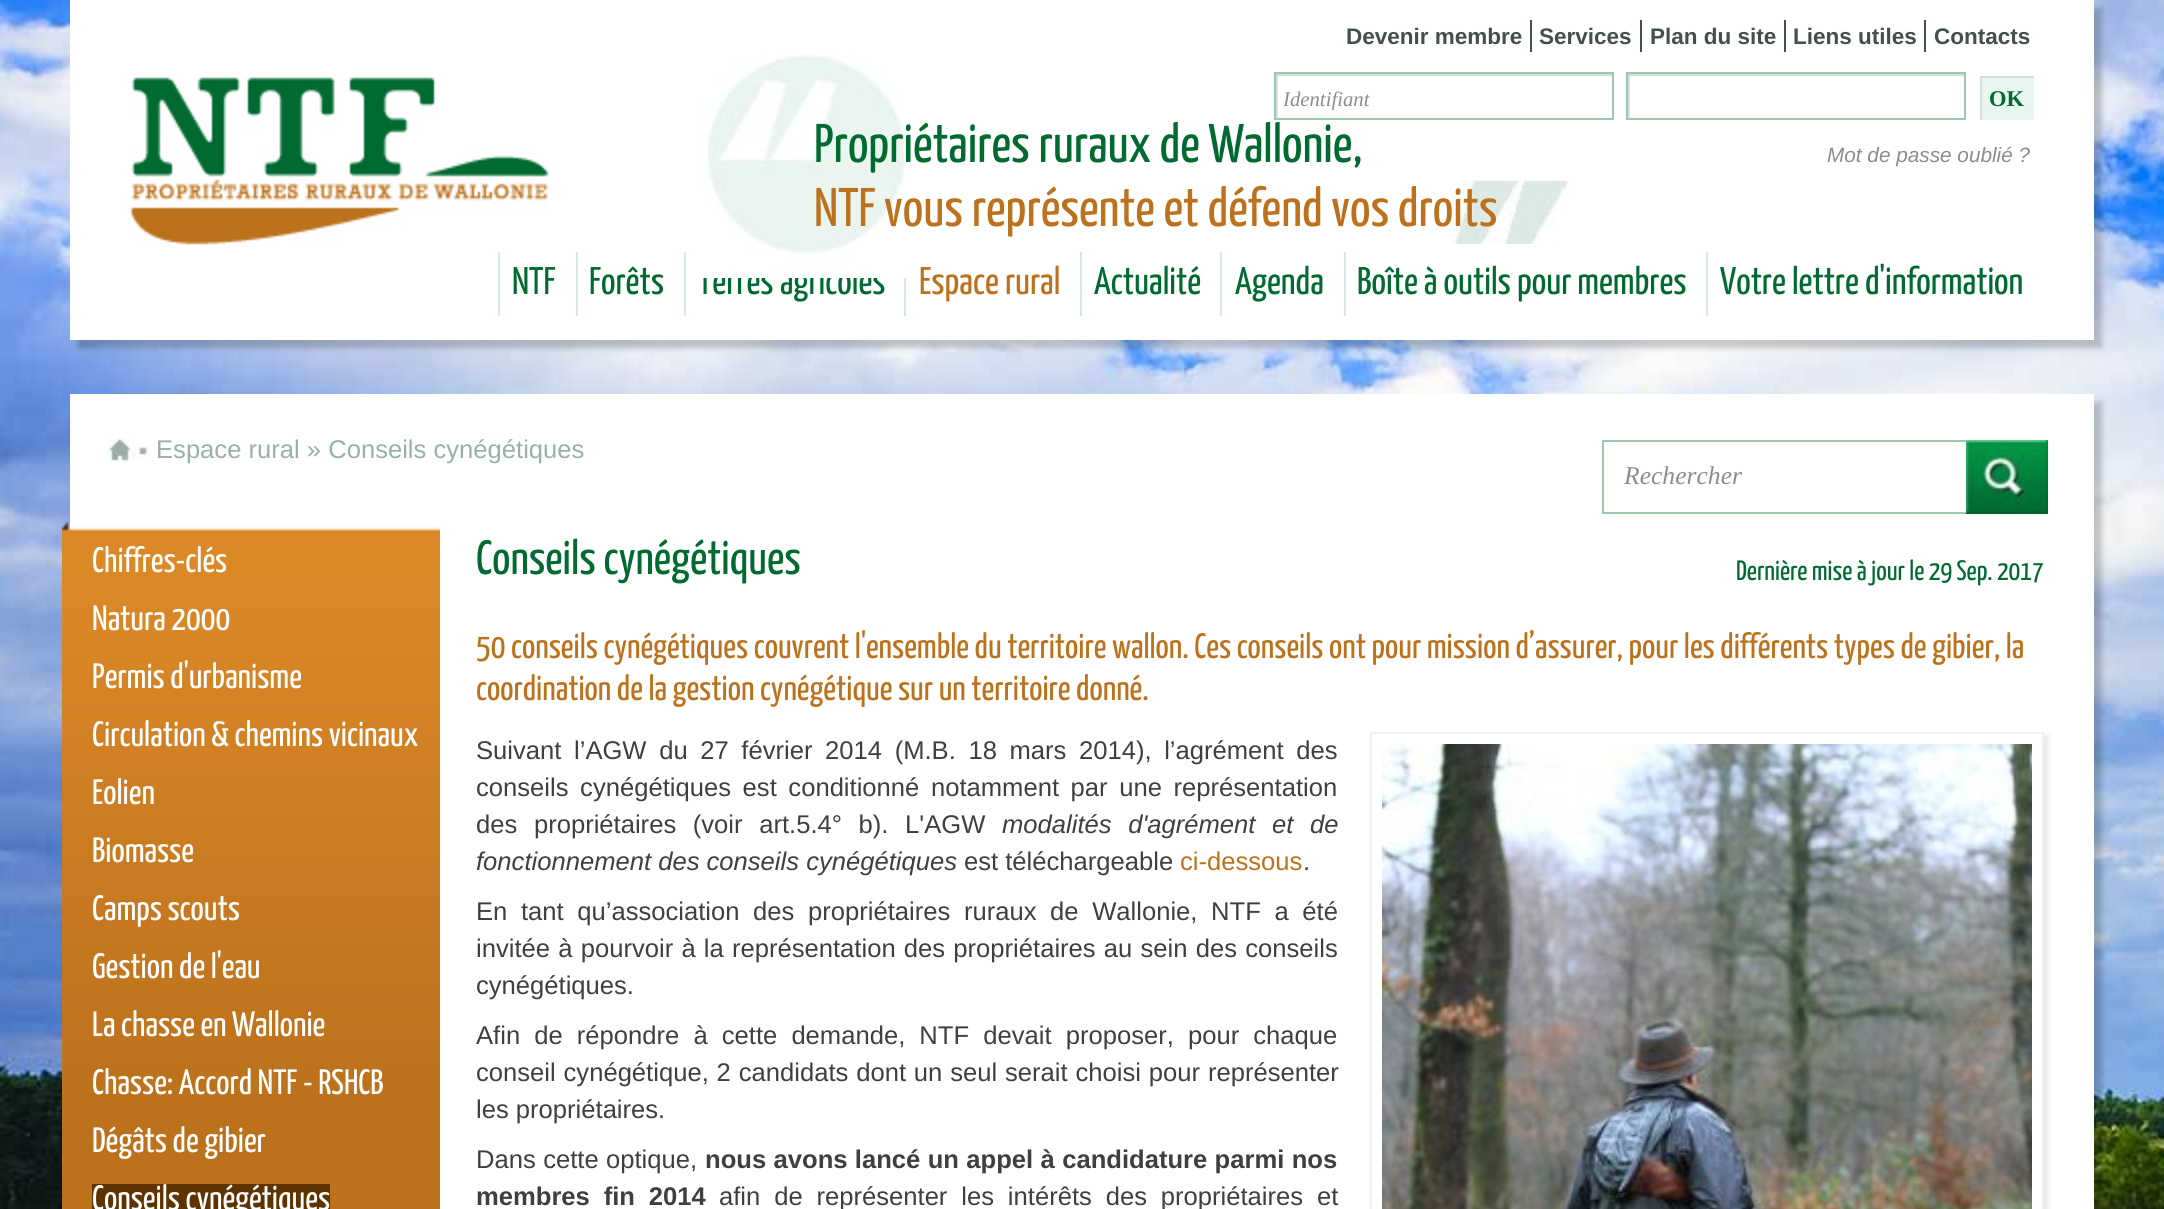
#include <cairo.h>
#include <math.h>
#include <stddef.h>

typedef struct { const char *family; double size; int italic, bold; unsigned color; } style_t;
static cairo_t *ctx;

static void ink(unsigned color) {
    cairo_set_source_rgb(ctx, (color >> 16) / 255.0, (color >> 8 & 255) / 255.0, (color & 255) / 255.0);
}

static void write(double x, double y, const char *s, const style_t *st) {
    cairo_select_font_face(ctx, st->family, st->italic ? CAIRO_FONT_SLANT_ITALIC : CAIRO_FONT_SLANT_NORMAL,
        st->bold ? CAIRO_FONT_WEIGHT_BOLD : CAIRO_FONT_WEIGHT_NORMAL);
    cairo_set_font_size(ctx, st->size);
    ink(st->color);
    cairo_move_to(ctx, x, y);
    cairo_show_text(ctx, s);
}

static void write_spaced(double x, double y, const char *s, double letter, double word) {
    cairo_move_to(ctx, x, y);
    while (*s) {
        char ch[5] = {0};
        int n = 0;
        do ch[n++] = *s++; while ((*s & 0xC0) == 0x80);
        cairo_show_text(ctx, ch);
        cairo_rel_move_to(ctx, letter + word * (*ch == ' '), 0);
    }
}

static void block(double x, double y, double w, double h, unsigned color) {
    ink(color);
    cairo_rectangle(ctx, x, y, w, h);
    cairo_fill(ctx);
}

static void round_path(double x, double y, double w, double h, double r) {
    cairo_new_sub_path(ctx);
    cairo_arc(ctx, x + w - r, y + h - r, r, 0, M_PI / 2);
    cairo_arc(ctx, x + r, y + h - r, r, M_PI / 2, M_PI);
    cairo_arc(ctx, x + r, y + r, r, M_PI, 1.5 * M_PI);
    cairo_arc(ctx, x + w - r, y + r, r, 1.5 * M_PI, 2 * M_PI);
    cairo_close_path(ctx);
}

static void blur_box(double x, double y, double w, double h, double r, double blur, double alpha) {
    cairo_push_group_with_content(ctx, CAIRO_CONTENT_ALPHA);
    cairo_set_operator(ctx, CAIRO_OPERATOR_SOURCE);
    for (int i = 15; i >= -15 && fmin(w, h) + blur * i / 3 > 0; i -= 2) {
        double e = blur * i / 6;
        cairo_set_source_rgba(ctx, 0, 0, 0, alpha * erfc((i - 1) / 8.5) / 2);
        round_path(x - e, y - e, w + 2 * e, h + 2 * e, fmax(0, fmin(r + e + blur * .6, fmin(w, h) / 2 + e)));
        cairo_fill(ctx);
    }
    cairo_pattern_t *soft = cairo_pop_group(ctx);
    cairo_mask(ctx, soft);
    cairo_pattern_destroy(soft);
}

static void paste(const char *path, double x, double y, double w, double h) {
    cairo_surface_t *image = cairo_image_surface_create_from_png(path);
    cairo_save(ctx);
    cairo_set_source_surface(ctx, image, x, y);
    cairo_rectangle(ctx, x, y, w, h);
    cairo_fill(ctx);
    cairo_restore(ctx);
    cairo_surface_destroy(image);
}

static const style_t s1 = {"Liberation Sans", 22.5, 0, 1, 0x435049};
static const style_t s2 = {"Yanone Kaffeesatz", 38.5, 0, 0, 0x006a31};
static const style_t s3 = {"Yanone Kaffeesatz", 54.4, 0, 0, 0x006a31};
static const style_t s4 = {"Yanone Kaffeesatz", 54.4, 0, 0, 0xbc721c};
static const style_t s5 = {"Liberation Serif", 20.75, 1, 0, 0x8c8c8c};
static const style_t s6 = {"Liberation Serif", 22.5, 0, 1, 0x006a31};
static const style_t s7 = {"Liberation Sans", 20.75, 1, 0, 0x8c8c8c};
static const style_t s8 = {"Yanone Kaffeesatz", 38.5, 0, 0, 0xbc721c};
static const style_t s9 = {"Liberation Sans", 25.6, 0, 0, 0x97b2a4};
static const style_t s10 = {"Liberation Serif", 25.6, 1, 0, 0x8c8c8c};
static const style_t s11 = {"Yanone Kaffeesatz", 35.2, 0, 0, 0xffffff};
static const style_t s12 = {"Yanone Kaffeesatz", 48, 0, 0, 0x006a31};
static const style_t s13 = {"Yanone Kaffeesatz", 28, 0, 0, 0x006a31};
static const style_t s14 = {"Yanone Kaffeesatz", 35.2, 0, 0, 0xbc721c};
static const style_t s15 = {"Liberation Sans", 25.6, 1, 0, 0x3f3f3f};
static const style_t s16 = {"Liberation Sans", 25.6, 0, 0, 0x3f3f3f};
static const style_t s17 = {"Liberation Sans", 25.6, 0, 0, 0xbc721c};

int main(void) {
    cairo_surface_t *surface = cairo_image_surface_create(CAIRO_FORMAT_RGB24, 2164, 1209);
    ctx = cairo_create(surface);
    cairo_font_options_t *options = cairo_font_options_create();
    cairo_font_options_set_hint_metrics(options, CAIRO_HINT_METRICS_OFF);
    cairo_font_options_set_hint_style(options, CAIRO_HINT_STYLE_NONE);
    cairo_set_font_options(ctx, options);
    cairo_set_miter_limit(ctx, 4);
    ink(0xffffff);
    cairo_paint(ctx);
    paste("pic1.png", 0, 0, 2164, 1209);
    ink(0x000000);
    blur_box(78, 8, 2024, 340, 0, 3, 0.2);
    block(70, 0, 2024, 340, 0xffffff);
    paste("pic2.png", 129, 77, 420, 168);
    block(1530, 20, 2, 32, 0x435049);
    write(1346, 44, "Devenir membre", &s1);
    block(1640, 20, 2, 32, 0x435049);
    write(1539, 44, "Services", &s1);
    block(1784, 20, 2, 32, 0x435049);
    write(1650, 44, "Plan du site", &s1);
    block(1924, 20, 2, 32, 0x435049);
    write(1793, 44, "Liens utiles", &s1);
    write(1934, 44, "Contacts", &s1);
    write(698, 294, "Terres agricoles", &s2);
    paste("pic3.png", 698, 54, 209, 224);
    paste("pic4.png", 1448, 180, 121, 64);
    write(814, 162, "Propriétaires ruraux de Wallonie,", &s3);
    write(814, 226, "NTF vous représente et défend vos droits", &s4);
    cairo_save(ctx);
    cairo_rectangle(ctx, 1276, 74, 336, 44);
    cairo_clip(ctx);
    ink(0xd5ded9);
    cairo_set_fill_rule(ctx, CAIRO_FILL_RULE_EVEN_ODD);
    cairo_new_path(ctx);
    cairo_move_to(ctx, 1078, -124);
    cairo_line_to(ctx, 1810, -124);
    cairo_line_to(ctx, 1810, 316);
    cairo_line_to(ctx, 1078, 316);
    cairo_close_path(ctx);
    cairo_move_to(ctx, 1278, 76);
    cairo_line_to(ctx, 1614, 76);
    cairo_line_to(ctx, 1614, 120);
    cairo_line_to(ctx, 1278, 120);
    cairo_close_path(ctx);
    cairo_fill(ctx);
    cairo_restore(ctx);
    cairo_rectangle(ctx, 1275, 73, 338, 46);
    ink(0x9bc9b0);
    cairo_stroke(ctx);
    cairo_save(ctx);
    cairo_rectangle(ctx, 1284, 88, 320, 22);
    cairo_clip(ctx);
    write(1283, 106, "Identifiant", &s5);
    cairo_restore(ctx);
    cairo_save(ctx);
    cairo_rectangle(ctx, 1628, 74, 336, 44);
    cairo_clip(ctx);
    ink(0xd5ded9);
    cairo_set_fill_rule(ctx, CAIRO_FILL_RULE_EVEN_ODD);
    cairo_new_path(ctx);
    cairo_move_to(ctx, 1430, -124);
    cairo_line_to(ctx, 2162, -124);
    cairo_line_to(ctx, 2162, 316);
    cairo_line_to(ctx, 1430, 316);
    cairo_close_path(ctx);
    cairo_move_to(ctx, 1630, 76);
    cairo_line_to(ctx, 1966, 76);
    cairo_line_to(ctx, 1966, 120);
    cairo_line_to(ctx, 1630, 120);
    cairo_close_path(ctx);
    cairo_fill(ctx);
    cairo_restore(ctx);
    cairo_rectangle(ctx, 1627, 73, 338, 46);
    cairo_stroke(ctx);
    block(1982, 78, 52, 42, 0xe9f5ef);
    cairo_save(ctx);
    cairo_rectangle(ctx, 1980, 76, 54, 44);
    cairo_clip(ctx);
    ink(0xd5ded9);
    cairo_set_fill_rule(ctx, CAIRO_FILL_RULE_EVEN_ODD);
    cairo_new_path(ctx);
    cairo_move_to(ctx, 1782, -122);
    cairo_line_to(ctx, 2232, -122);
    cairo_line_to(ctx, 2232, 318);
    cairo_line_to(ctx, 1782, 318);
    cairo_close_path(ctx);
    cairo_move_to(ctx, 1982, 78);
    cairo_line_to(ctx, 2036, 78);
    cairo_line_to(ctx, 2036, 122);
    cairo_line_to(ctx, 1982, 122);
    cairo_close_path(ctx);
    cairo_fill(ctx);
    cairo_restore(ctx);
    write(1989, 106, "OK", &s6);
    write(1827, 162, "Mot de passe oublié ?", &s7);
    block(498, 252, 2, 64, 0xd5e9de);
    write(512, 294, "NTF", &s2);
    block(576, 252, 2, 64, 0xd5e9de);
    write(589, 294, "Forêts", &s2);
    block(684, 252, 2, 64, 0xd5e9de);
    block(904, 278, 2, 38, 0xd5e9de);
    write(919, 294, "Espace rural", &s8);
    block(1080, 252, 2, 64, 0xd5e9de);
    write(1094, 294, "Actualité", &s2);
    block(1220, 252, 2, 64, 0xd5e9de);
    write(1235, 294, "Agenda", &s2);
    block(1344, 252, 2, 64, 0xd5e9de);
    write(1357, 294, "Boîte à outils pour membres", &s2);
    block(1706, 252, 2, 64, 0xd5e9de);
    write(1720, 294, "Votre lettre d'information", &s2);
    ink(0x000000);
    blur_box(78, 402, 2024, 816, 0, 3, 0.2);
    block(70, 394, 2024, 815, 0xffffff);
    paste("pic5.png", 108, 438, 27, 24);
    paste("pic6.png", 134, 444, 16, 14);
    write(156, 458, "Espace rural » Conseils cynégétiques", &s9);
    cairo_rectangle(ctx, 1603, 441, 364, 72);
    ink(0x9bc9b0);
    cairo_stroke(ctx);
    write(1624, 484, "Rechercher", &s10);
    paste("pic7.png", 1966, 440, 82, 74);
    paste("pic8.png", 62, 522, 378, 687);
    write(92, 572, "Chiffres-clés", &s11);
    write(92, 630, "Natura 2000", &s11);
    write(92, 688, "Permis d'urbanisme", &s11);
    write(92, 746, "Circulation & chemins vicinaux", &s11);
    write(92, 804, "Eolien", &s11);
    write(92, 862, "Biomasse", &s11);
    write(92, 920, "Camps scouts", &s11);
    write(92, 978, "Gestion de l'eau", &s11);
    write(92, 1036, "La chasse en Wallonie", &s11);
    write(92, 1094, "Chasse: Accord NTF - RSHCB", &s11);
    write(92, 1152, "Dégâts de gibier", &s11);
    block(92, 1184, 238, 25, 0x5f3300);
    write(92, 1210, "Conseils cynégétiques", &s11);
    write(476, 574, "Conseils cynégétiques", &s12);
    write(1736, 580, "Dernière mise à jour le 29 Sep. 2017", &s13);
    write(476, 658, "50 conseils cynégétiques couvrent l'ensemble du territoire wallon. Ces conseils ont pour mission d’assurer, pour les différents types de gibier, la", &s14);
    write(476, 700, "coordination de la gestion cynégétique sur un territoire donné.", &s14);
    cairo_select_font_face(ctx, "Liberation Sans", CAIRO_FONT_SLANT_NORMAL, CAIRO_FONT_WEIGHT_NORMAL);
    cairo_set_font_size(ctx, 25.6);
    ink(0x3f3f3f);
    write_spaced(476, 759, "Suivant l’AGW du 27 février 2014 (M.B. 18 mars 2014), l’agrément des", 0, 5.5);
    write_spaced(476, 796, "conseils cynégétiques est conditionné notamment par une représentation", 0, 4.5);
    write_spaced(476, 833, "des propriétaires (voir art.5.4° b). L'AGW", 0, 9.5);
    cairo_select_font_face(ctx, "Liberation Sans", CAIRO_FONT_SLANT_ITALIC, CAIRO_FONT_WEIGHT_NORMAL);
    write_spaced(1002, 833, "modalités d'agrément et de", 0, 9.5);
    write(476, 870, "fonctionnement des conseils cynégétiques", &s15);
    write(964, 870, "est téléchargeable", &s16);
    write(1180, 870, "ci-dessous", &s17);
    write(1303, 870, ".", &s16);
    write_spaced(476, 920, "En tant qu’association des propriétaires ruraux de Wallonie, NTF a été", 0, 6.5);
    write_spaced(476, 957, "invitée à pourvoir à la représentation des propriétaires au sein des conseils", 0, 1.1);
    write(476, 994, "cynégétiques.", &s16);
    write_spaced(476, 1044, "Afin de répondre à cette demande, NTF devait proposer, pour chaque", 0, 7);
    write_spaced(476, 1081, "conseil cynégétique, 2 candidats dont un seul serait choisi pour représenter", 0, 0.75);
    write(476, 1118, "les propriétaires.", &s16);
    write_spaced(476, 1168, "Dans cette optique,", 0, 0.25);
    cairo_select_font_face(ctx, "Liberation Sans", CAIRO_FONT_SLANT_NORMAL, CAIRO_FONT_WEIGHT_BOLD);
    write_spaced(705, 1168, "nous avons lancé un appel à candidature parmi nos", 0, 0.25);
    write_spaced(476, 1205, "membres fin 2014", 0, 6.75);
    cairo_select_font_face(ctx, "Liberation Sans", CAIRO_FONT_SLANT_NORMAL, CAIRO_FONT_WEIGHT_NORMAL);
    write_spaced(719, 1205, "afin de représenter les intérêts des propriétaires et", 0, 6.75);
    cairo_save(ctx);
    cairo_set_fill_rule(ctx, CAIRO_FILL_RULE_EVEN_ODD);
    cairo_new_path(ctx);
    cairo_move_to(ctx, 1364, 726);
    cairo_line_to(ctx, 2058, 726);
    cairo_line_to(ctx, 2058, 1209);
    cairo_line_to(ctx, 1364, 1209);
    cairo_close_path(ctx);
    cairo_move_to(ctx, 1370, 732);
    cairo_line_to(ctx, 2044, 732);
    cairo_line_to(ctx, 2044, 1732);
    cairo_line_to(ctx, 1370, 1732);
    cairo_close_path(ctx);
    cairo_clip(ctx);
    ink(0xe6e6e6);
    blur_box(1374, 736, 674, 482, 0, 3, 1);
    cairo_restore(ctx);
    cairo_rectangle(ctx, 1371, 733, 672, 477);
    ink(0xf1f1f1);
    cairo_stroke(ctx);
    paste("pic9.png", 1382, 744, 650, 465);
    cairo_surface_write_to_png(surface, "screenshot.png");
    cairo_font_options_destroy(options);
    cairo_destroy(ctx);
    cairo_surface_destroy(surface);
    return 0;
}
